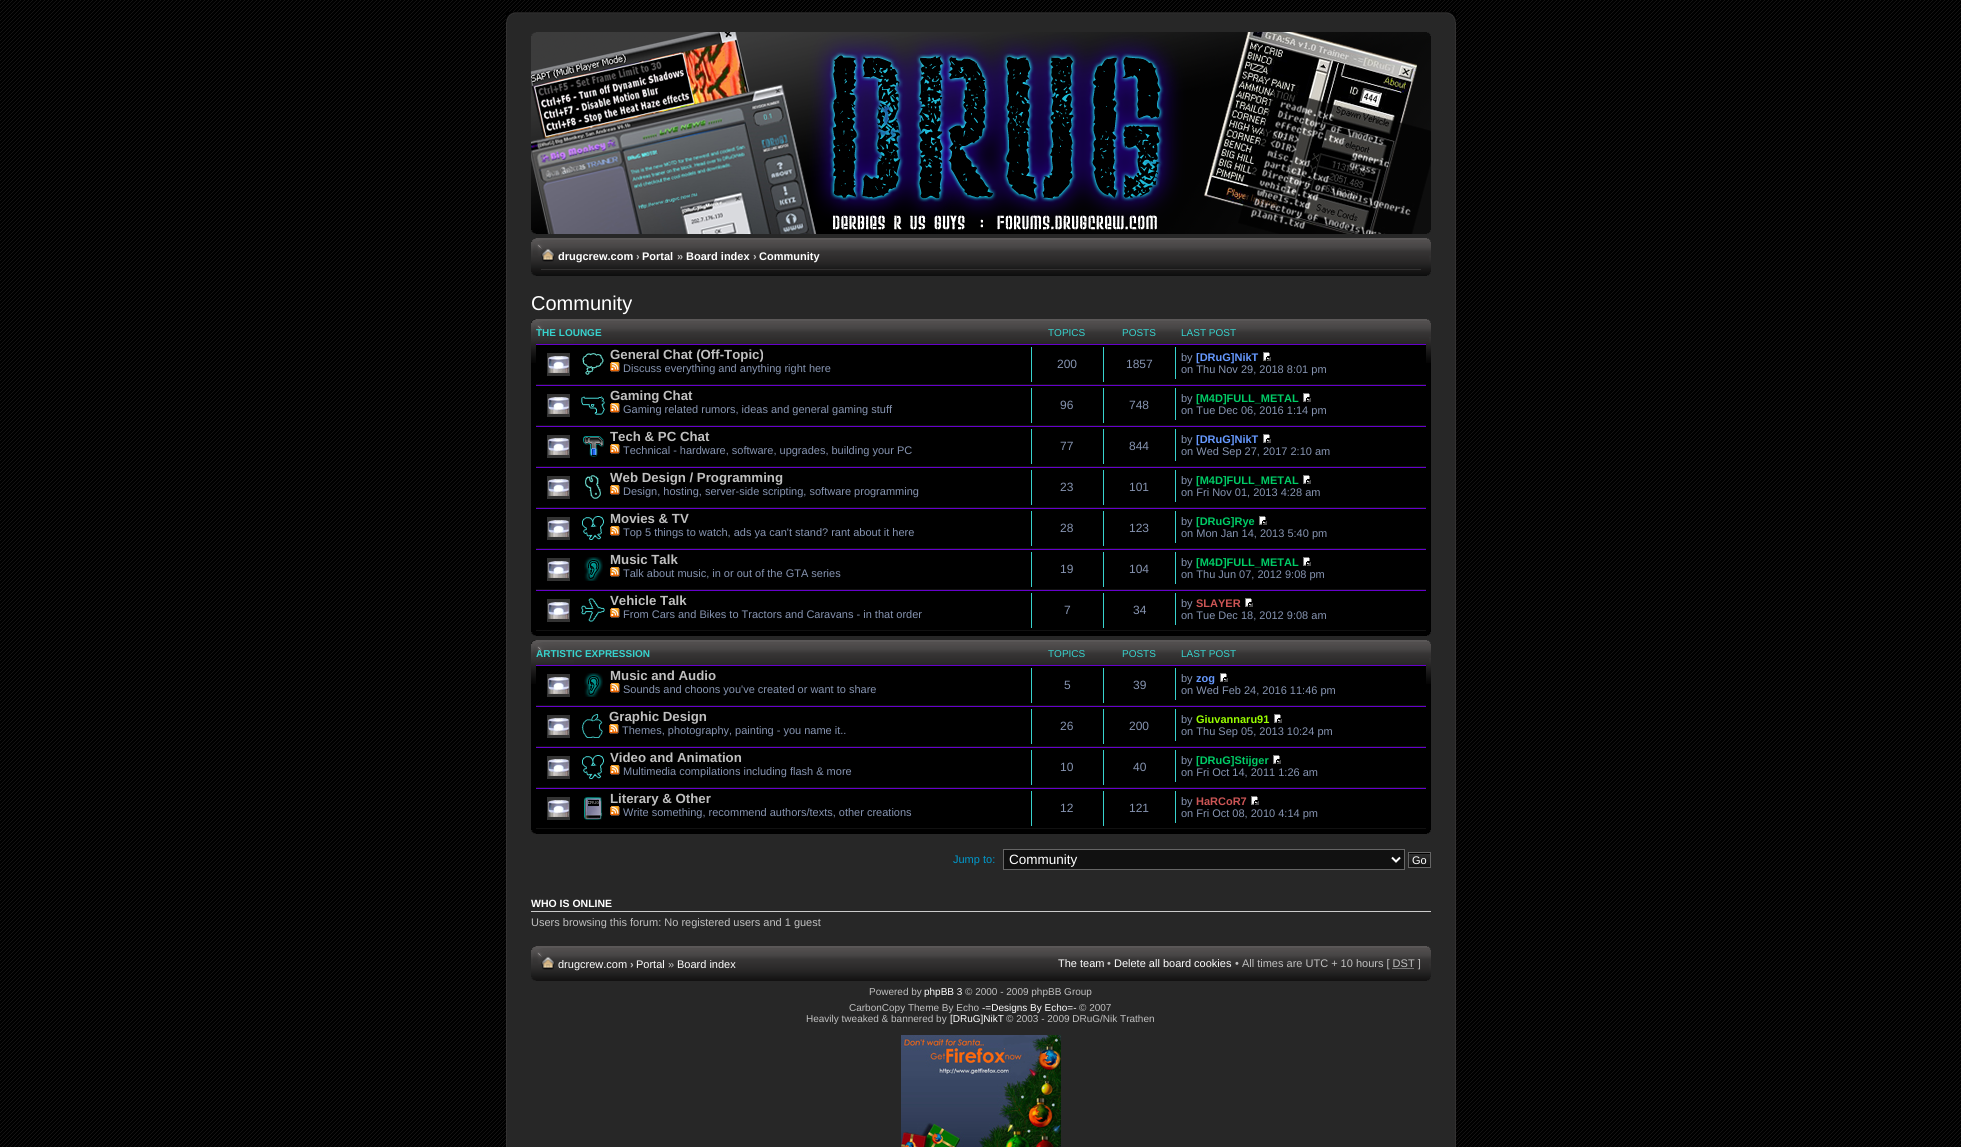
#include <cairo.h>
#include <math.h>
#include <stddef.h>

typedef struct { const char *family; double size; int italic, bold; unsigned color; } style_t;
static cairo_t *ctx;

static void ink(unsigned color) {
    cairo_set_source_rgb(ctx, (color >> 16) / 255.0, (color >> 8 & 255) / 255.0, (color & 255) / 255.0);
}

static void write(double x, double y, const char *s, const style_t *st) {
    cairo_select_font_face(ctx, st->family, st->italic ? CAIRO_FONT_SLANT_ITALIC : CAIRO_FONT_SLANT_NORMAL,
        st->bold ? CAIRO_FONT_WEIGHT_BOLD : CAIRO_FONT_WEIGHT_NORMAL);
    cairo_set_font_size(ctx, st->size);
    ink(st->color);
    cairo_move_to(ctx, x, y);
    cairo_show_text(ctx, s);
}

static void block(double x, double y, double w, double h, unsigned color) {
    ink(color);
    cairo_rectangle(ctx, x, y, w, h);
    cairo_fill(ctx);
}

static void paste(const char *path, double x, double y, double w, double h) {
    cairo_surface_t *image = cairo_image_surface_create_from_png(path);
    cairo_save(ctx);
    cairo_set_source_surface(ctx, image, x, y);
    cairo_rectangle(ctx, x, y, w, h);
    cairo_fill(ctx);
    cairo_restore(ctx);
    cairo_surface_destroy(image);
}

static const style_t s1 = {"Liberation Sans", 11, 0, 1, 0xffffff};
static const style_t s2 = {"Liberation Sans", 11, 0, 1, 0xc0c0c0};
static const style_t s3 = {"Liberation Sans", 20, 0, 0, 0xffffff};
static const style_t s4 = {"Liberation Sans", 10, 0, 1, 0x37d2cd};
static const style_t s5 = {"Liberation Sans", 10, 0, 0, 0x37d2cd};
static const style_t s6 = {"Liberation Sans", 13.25, 0, 1, 0xc0c0c0};
static const style_t s7 = {"Liberation Sans", 11, 0, 0, 0x8694b1};
static const style_t s8 = {"Liberation Sans", 12, 0, 0, 0x8694b1};
static const style_t s9 = {"Liberation Sans", 11, 0, 1, 0x6699ff};
static const style_t s10 = {"Liberation Sans", 11, 0, 1, 0x00cc66};
static const style_t s11 = {"Liberation Sans", 11, 0, 1, 0xcc5555};
static const style_t s12 = {"Liberation Sans", 11, 0, 1, 0x99ff00};
static const style_t s13 = {"Liberation Sans", 11, 0, 0, 0x0099cc};
static const style_t s14 = {"Liberation Sans", 13.5, 0, 0, 0xffffff};
static const style_t s15 = {"Liberation Sans", 11, 0, 0, 0xffffff};
static const style_t s16 = {"Liberation Sans", 10.5, 0, 1, 0xffffff};
static const style_t s17 = {"Liberation Sans", 11, 0, 0, 0xc0c0c0};
static const style_t s18 = {"Liberation Sans", 10, 0, 0, 0xc0c0c0};
static const style_t s19 = {"Liberation Sans", 10, 0, 0, 0xffffff};

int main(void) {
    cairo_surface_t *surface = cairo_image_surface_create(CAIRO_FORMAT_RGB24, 1961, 1147);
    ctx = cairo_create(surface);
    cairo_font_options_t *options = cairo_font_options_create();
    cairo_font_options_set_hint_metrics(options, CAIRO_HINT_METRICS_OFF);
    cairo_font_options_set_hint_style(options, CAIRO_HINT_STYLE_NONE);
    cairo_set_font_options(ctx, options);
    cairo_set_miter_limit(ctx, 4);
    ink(0xffffff);
    cairo_paint(ctx);
    paste("pic1.png", 0, 0, 1961, 1147);
    paste("pic2.png", 506, 12, 940, 10);
    paste("pic3.png", 1446, 12, 10, 10);
    block(507, 22, 948, 1125, 0x272727);
    block(1455, 22, 1, 1125, 0x323131);
    block(506, 22, 1, 1125, 0x323131);
    paste("pic4.png", 531, 32, 900, 202);
    paste("pic5.png", 531, 32, 5, 4);
    paste("pic6.png", 1427, 32, 4, 4);
    paste("pic7.png", 531, 230, 5, 4);
    paste("pic8.png", 1427, 230, 4, 4);
    paste("pic9.png", 531, 238, 900, 38);
    paste("pic10.png", 531, 238, 5, 4);
    paste("pic11.png", 1427, 238, 4, 4);
    block(541, 269, 880, 1, 0x323131);
    paste("pic12.png", 541, 249, 14, 13);
    write(558, 260, "drugcrew.com", &s1);
    write(636, 260, "›", &s2);
    write(642, 260, "Portal", &s1);
    write(677, 260, "»", &s2);
    write(686, 260, "Board index", &s1);
    write(753, 260, "›", &s2);
    write(759, 260, "Community", &s1);
    paste("pic13.png", 531, 272, 5, 4);
    paste("pic14.png", 1427, 272, 4, 4);
    write(531, 310, "Community", &s3);
    block(531, 319, 900, 317, 0x000000);
    paste("pic15.png", 531, 319, 900, 44);
    paste("pic10.png", 531, 319, 5, 4);
    paste("pic11.png", 1427, 319, 4, 4);
    write(536, 336, "THE LOUNGE", &s4);
    write(1048, 336, "TOPICS", &s5);
    write(1122, 336, "POSTS", &s5);
    write(1181, 336, "LAST POST", &s5);
    block(536, 345, 890, 18, 0x000000);
    block(536, 344, 890, 1, 0x6600cc);
    block(536, 384, 890, 1, 0x111111);
    paste("pic16.png", 547, 353, 23, 23);
    paste("pic17.png", 582, 353, 22, 22);
    write(610, 359, "General Chat (Off-Topic)", &s6);
    paste("pic18.png", 610, 362, 10, 10);
    write(623, 372, "Discuss everything and anything right here", &s7);
    block(1031, 347, 1, 35, 0x37d2cd);
    write(1057, 368, "200", &s8);
    block(1103, 347, 1, 35, 0x37d2cd);
    write(1126, 368, "1857", &s8);
    block(1175, 347, 1, 32, 0x37d2cd);
    write(1181, 361, "by", &s7);
    write(1196, 361, "[DRuG]NikT", &s9);
    paste("pic19.png", 1263, 352, 8, 9);
    write(1181, 373, "on Thu Nov 29, 2018 8:01 pm", &s7);
    block(536, 385, 890, 1, 0x6600cc);
    block(536, 425, 890, 1, 0x111111);
    paste("pic16.png", 547, 394, 23, 23);
    paste("pic20.png", 581, 396, 24, 19);
    write(610, 400, "Gaming Chat", &s6);
    paste("pic18.png", 610, 403, 10, 10);
    write(623, 413, "Gaming related rumors, ideas and general gaming stuff", &s7);
    block(1031, 388, 1, 35, 0x37d2cd);
    write(1060, 409, "96", &s8);
    block(1103, 388, 1, 35, 0x37d2cd);
    write(1129, 409, "748", &s8);
    block(1175, 388, 1, 32, 0x37d2cd);
    write(1181, 402, "by", &s7);
    write(1196, 402, "[M4D]FULL_METAL", &s10);
    paste("pic19.png", 1303, 393, 8, 9);
    write(1181, 414, "on Tue Dec 06, 2016 1:14 pm", &s7);
    block(536, 426, 890, 1, 0x6600cc);
    block(536, 466, 890, 1, 0x111111);
    paste("pic16.png", 547, 435, 23, 23);
    paste("pic21.png", 583, 436, 21, 21);
    write(610, 441, "Tech & PC Chat", &s6);
    paste("pic18.png", 610, 444, 10, 10);
    write(623, 454, "Technical - hardware, software, upgrades, building your PC", &s7);
    block(1031, 429, 1, 35, 0x37d2cd);
    write(1060, 450, "77", &s8);
    block(1103, 429, 1, 35, 0x37d2cd);
    write(1129, 450, "844", &s8);
    block(1175, 429, 1, 32, 0x37d2cd);
    write(1181, 443, "by", &s7);
    write(1196, 443, "[DRuG]NikT", &s9);
    paste("pic19.png", 1263, 434, 8, 9);
    write(1181, 455, "on Wed Sep 27, 2017 2:10 am", &s7);
    block(536, 467, 890, 1, 0x6600cc);
    block(536, 507, 890, 1, 0x111111);
    paste("pic16.png", 547, 476, 23, 23);
    paste("pic22.png", 585, 475, 16, 24);
    write(610, 482, "Web Design / Programming", &s6);
    paste("pic18.png", 610, 485, 10, 10);
    write(623, 495, "Design, hosting, server-side scripting, software programming", &s7);
    block(1031, 470, 1, 35, 0x37d2cd);
    write(1060, 491, "23", &s8);
    block(1103, 470, 1, 35, 0x37d2cd);
    write(1129, 491, "101", &s8);
    block(1175, 470, 1, 32, 0x37d2cd);
    write(1181, 484, "by", &s7);
    write(1196, 484, "[M4D]FULL_METAL", &s10);
    paste("pic19.png", 1303, 475, 8, 9);
    write(1181, 496, "on Fri Nov 01, 2013 4:28 am", &s7);
    block(536, 508, 890, 1, 0x6600cc);
    block(536, 548, 890, 1, 0x111111);
    paste("pic16.png", 547, 517, 23, 23);
    paste("pic23.png", 582, 516, 22, 24);
    write(610, 523, "Movies & TV", &s6);
    paste("pic18.png", 610, 526, 10, 10);
    write(623, 536, "Top 5 things to watch, ads ya can't stand? rant about it here", &s7);
    block(1031, 511, 1, 35, 0x37d2cd);
    write(1060, 532, "28", &s8);
    block(1103, 511, 1, 35, 0x37d2cd);
    write(1129, 532, "123", &s8);
    block(1175, 511, 1, 32, 0x37d2cd);
    write(1181, 525, "by", &s7);
    write(1196, 525, "[DRuG]Rye", &s10);
    paste("pic19.png", 1259, 516, 8, 9);
    write(1181, 537, "on Mon Jan 14, 2013 5:40 pm", &s7);
    block(536, 549, 890, 1, 0x6600cc);
    block(536, 589, 890, 1, 0x111111);
    paste("pic16.png", 547, 558, 23, 23);
    paste("pic24.png", 584, 557, 19, 24);
    write(610, 564, "Music Talk", &s6);
    paste("pic18.png", 610, 567, 10, 10);
    write(623, 577, "Talk about music, in or out of the GTA series", &s7);
    block(1031, 552, 1, 35, 0x37d2cd);
    write(1060, 573, "19", &s8);
    block(1103, 552, 1, 35, 0x37d2cd);
    write(1129, 573, "104", &s8);
    block(1175, 552, 1, 32, 0x37d2cd);
    write(1181, 566, "by", &s7);
    write(1196, 566, "[M4D]FULL_METAL", &s10);
    paste("pic19.png", 1303, 557, 8, 9);
    write(1181, 578, "on Thu Jun 07, 2012 9:08 pm", &s7);
    block(536, 590, 890, 1, 0x6600cc);
    block(536, 630, 890, 1, 0x111111);
    paste("pic16.png", 547, 599, 23, 23);
    paste("pic25.png", 581, 598, 24, 24);
    write(610, 605, "Vehicle Talk", &s6);
    paste("pic18.png", 610, 608, 10, 10);
    write(623, 618, "From Cars and Bikes to Tractors and Caravans - in that order", &s7);
    block(1031, 593, 1, 35, 0x37d2cd);
    write(1064, 614, "7", &s8);
    block(1103, 593, 1, 35, 0x37d2cd);
    write(1133, 614, "34", &s8);
    block(1175, 593, 1, 32, 0x37d2cd);
    write(1181, 607, "by", &s7);
    write(1196, 607, "SLAYER", &s11);
    paste("pic19.png", 1245, 598, 8, 9);
    write(1181, 619, "on Tue Dec 18, 2012 9:08 am", &s7);
    paste("pic26.png", 531, 632, 5, 4);
    paste("pic27.png", 1427, 632, 4, 4);
    block(531, 640, 900, 194, 0x000000);
    paste("pic15.png", 531, 640, 900, 44);
    paste("pic10.png", 531, 640, 5, 4);
    paste("pic11.png", 1427, 640, 4, 4);
    write(536, 657, "ARTISTIC EXPRESSION", &s4);
    write(1048, 657, "TOPICS", &s5);
    write(1122, 657, "POSTS", &s5);
    write(1181, 657, "LAST POST", &s5);
    block(536, 666, 890, 18, 0x000000);
    block(536, 665, 890, 1, 0x6600cc);
    block(536, 705, 890, 1, 0x111111);
    paste("pic16.png", 547, 674, 23, 23);
    paste("pic24.png", 584, 673, 19, 24);
    write(610, 680, "Music and Audio", &s6);
    paste("pic18.png", 610, 683, 10, 10);
    write(623, 693, "Sounds and choons you've created or want to share", &s7);
    block(1031, 668, 1, 35, 0x37d2cd);
    write(1064, 689, "5", &s8);
    block(1103, 668, 1, 35, 0x37d2cd);
    write(1133, 689, "39", &s8);
    block(1175, 668, 1, 32, 0x37d2cd);
    write(1181, 682, "by", &s7);
    write(1196, 682, "zog", &s9);
    paste("pic19.png", 1220, 673, 8, 9);
    write(1181, 694, "on Wed Feb 24, 2016 11:46 pm", &s7);
    block(536, 706, 890, 1, 0x6600cc);
    block(536, 746, 890, 1, 0x111111);
    paste("pic16.png", 547, 715, 23, 23);
    paste("pic28.png", 581, 714, 22, 24);
    write(609, 721, "Graphic Design", &s6);
    paste("pic18.png", 609, 724, 10, 10);
    write(622, 734, "Themes, photography, painting - you name it..", &s7);
    block(1031, 709, 1, 35, 0x37d2cd);
    write(1060, 730, "26", &s8);
    block(1103, 709, 1, 35, 0x37d2cd);
    write(1129, 730, "200", &s8);
    block(1175, 709, 1, 32, 0x37d2cd);
    write(1181, 723, "by", &s7);
    write(1196, 723, "Giuvannaru91", &s12);
    paste("pic19.png", 1274, 714, 8, 9);
    write(1181, 735, "on Thu Sep 05, 2013 10:24 pm", &s7);
    block(536, 747, 890, 1, 0x6600cc);
    block(536, 787, 890, 1, 0x111111);
    paste("pic16.png", 547, 756, 23, 23);
    paste("pic23.png", 582, 755, 22, 24);
    write(610, 762, "Video and Animation", &s6);
    paste("pic18.png", 610, 765, 10, 10);
    write(623, 775, "Multimedia compilations including flash & more", &s7);
    block(1031, 750, 1, 35, 0x37d2cd);
    write(1060, 771, "10", &s8);
    block(1103, 750, 1, 35, 0x37d2cd);
    write(1133, 771, "40", &s8);
    block(1175, 750, 1, 32, 0x37d2cd);
    write(1181, 764, "by", &s7);
    write(1196, 764, "[DRuG]Stijger", &s10);
    paste("pic19.png", 1273, 755, 8, 9);
    write(1181, 776, "on Fri Oct 14, 2011 1:26 am", &s7);
    block(536, 788, 890, 1, 0x6600cc);
    block(536, 828, 890, 1, 0x111111);
    paste("pic16.png", 547, 797, 23, 23);
    paste("pic29.png", 584, 797, 19, 23);
    write(610, 803, "Literary & Other", &s6);
    paste("pic18.png", 610, 806, 10, 10);
    write(623, 816, "Write something, recommend authors/texts, other creations", &s7);
    block(1031, 791, 1, 35, 0x37d2cd);
    write(1060, 812, "12", &s8);
    block(1103, 791, 1, 35, 0x37d2cd);
    write(1129, 812, "121", &s8);
    block(1175, 791, 1, 32, 0x37d2cd);
    write(1181, 805, "by", &s7);
    write(1196, 805, "HaRCoR7", &s11);
    paste("pic19.png", 1251, 796, 8, 9);
    write(1181, 817, "on Fri Oct 08, 2010 4:14 pm", &s7);
    paste("pic26.png", 531, 830, 5, 4);
    paste("pic27.png", 1427, 830, 4, 4);
    write(953, 863, "Jump to:", &s13);
    ink(0x111111);
    cairo_rectangle(ctx, 1003.5, 849.5, 401, 20);
    cairo_fill_preserve(ctx);
    ink(0x666666);
    cairo_set_line_width(ctx, 1);
    cairo_stroke(ctx);
    cairo_new_path(ctx);
    cairo_move_to(ctx, 1392, 857.5);
    cairo_line_to(ctx, 1396, 861.5);
    cairo_line_to(ctx, 1400, 857.5);
    ink(0xffffff);
    cairo_set_line_width(ctx, 2);
    cairo_stroke(ctx);
    write(1009, 864, "Community", &s14);
    block(1409, 865, 21, 2, 0x111111);
    paste("pic30.png", 1409, 853, 21, 12);
    cairo_rectangle(ctx, 1408.5, 852.5, 22, 15);
    ink(0x666666);
    cairo_set_line_width(ctx, 1);
    cairo_stroke(ctx);
    write(1412, 864, "Go", &s15);
    block(531, 911, 900, 1, 0xcccccc);
    write(531, 907, "WHO IS ONLINE", &s16);
    write(531, 926, "Users browsing this forum: No registered users and 1 guest", &s17);
    paste("pic31.png", 531, 946, 900, 35);
    paste("pic10.png", 531, 946, 5, 4);
    paste("pic11.png", 1427, 946, 4, 4);
    paste("pic32.png", 541, 957, 14, 13);
    write(558, 968, "drugcrew.com", &s15);
    write(630, 968, "›", &s2);
    write(636, 968, "Portal", &s15);
    write(668, 968, "»", &s17);
    write(677, 968, "Board index", &s15);
    write(1058, 967, "The team", &s15);
    write(1107, 967, "•", &s17);
    write(1114, 967, "Delete all board cookies", &s15);
    write(1235, 967, "• All times are UTC + 10 hours [ DST ]", &s17);
    cairo_new_path(ctx);
    cairo_move_to(ctx, 1392.5, 968.5);
    cairo_line_to(ctx, 1414.5, 968.5);
    cairo_set_dash(ctx, (double[]){1, 1}, 2, 0);
    cairo_stroke(ctx);
    paste("pic33.png", 531, 977, 5, 4);
    paste("pic34.png", 1427, 977, 4, 4);
    write(869, 995, "Powered by", &s18);
    write(924, 995, "phpBB 3", &s19);
    write(965, 995, "© 2000 - 2009 phpBB Group", &s18);
    write(849, 1011, "CarbonCopy Theme By Echo", &s18);
    write(982, 1011, "-=Designs By Echo=-", &s19);
    write(1079, 1011, "© 2007", &s18);
    write(806, 1022, "Heavily tweaked & bannered by", &s18);
    write(950, 1022, "[DRuG]NikT", &s19);
    write(1006, 1022, "© 2003 - 2009 DRuG/Nik Trathen", &s18);
    paste("pic35.png", 901, 1035, 160, 112);
    cairo_surface_write_to_png(surface, "screenshot.png");
    cairo_font_options_destroy(options);
    cairo_destroy(ctx);
    cairo_surface_destroy(surface);
    return 0;
}
